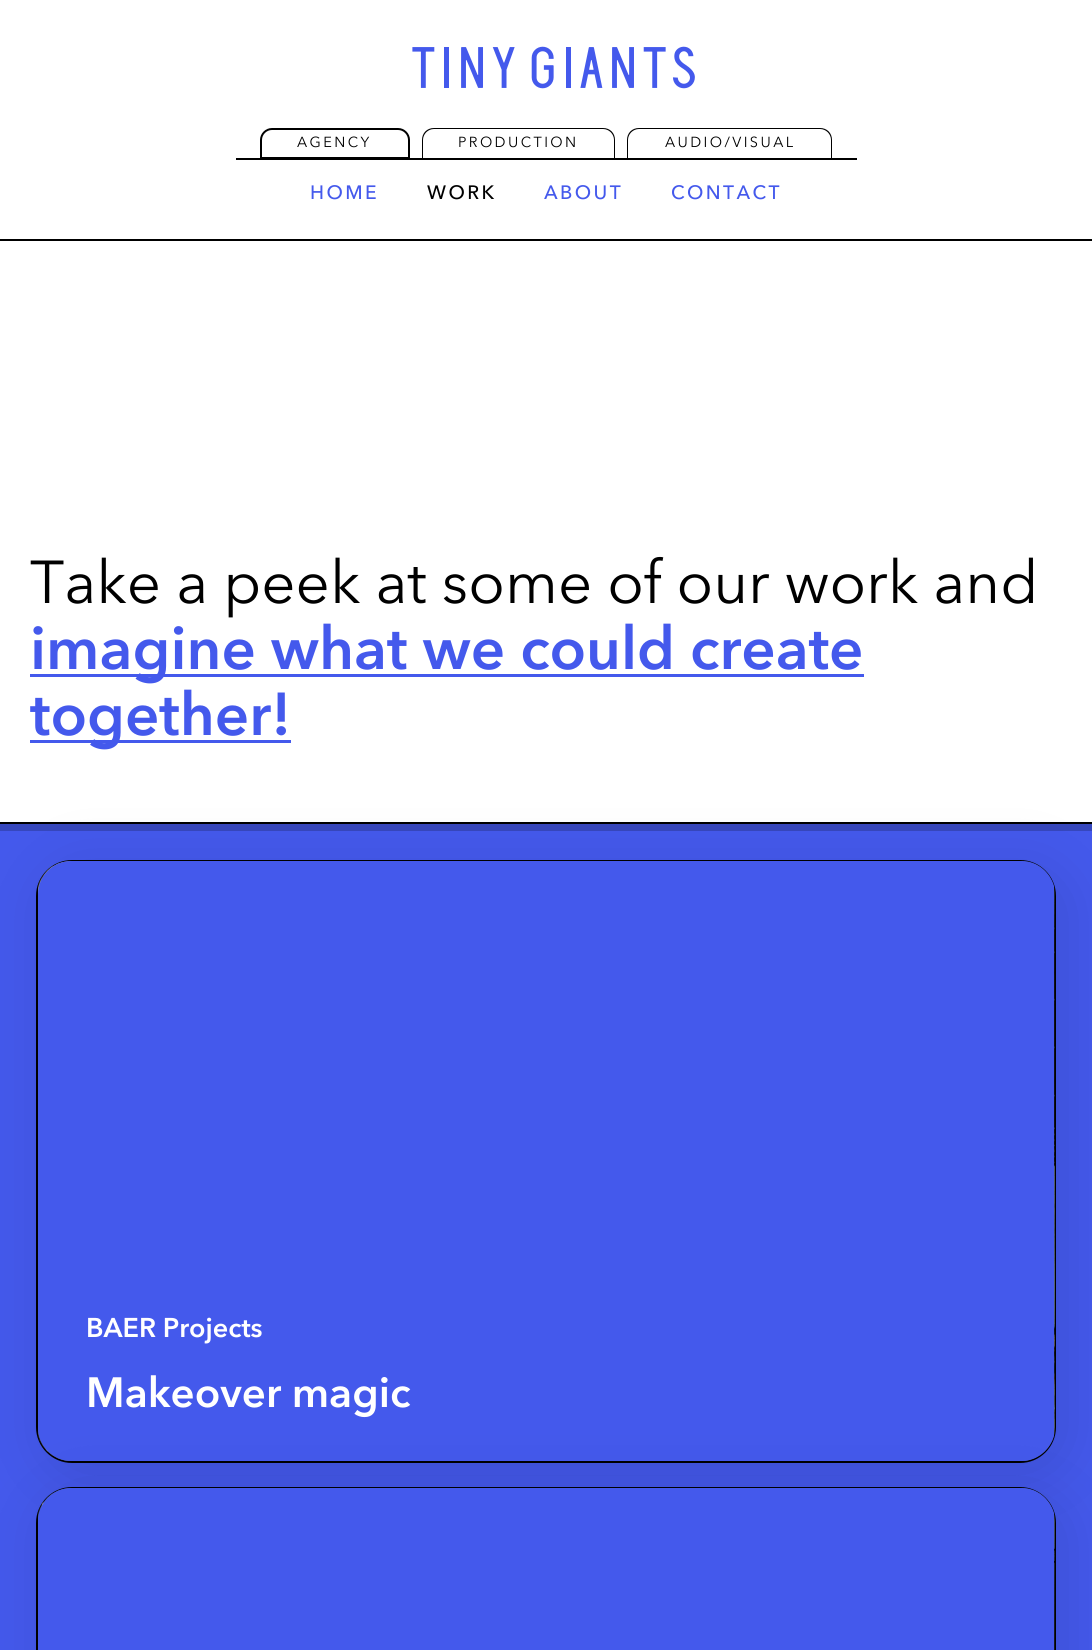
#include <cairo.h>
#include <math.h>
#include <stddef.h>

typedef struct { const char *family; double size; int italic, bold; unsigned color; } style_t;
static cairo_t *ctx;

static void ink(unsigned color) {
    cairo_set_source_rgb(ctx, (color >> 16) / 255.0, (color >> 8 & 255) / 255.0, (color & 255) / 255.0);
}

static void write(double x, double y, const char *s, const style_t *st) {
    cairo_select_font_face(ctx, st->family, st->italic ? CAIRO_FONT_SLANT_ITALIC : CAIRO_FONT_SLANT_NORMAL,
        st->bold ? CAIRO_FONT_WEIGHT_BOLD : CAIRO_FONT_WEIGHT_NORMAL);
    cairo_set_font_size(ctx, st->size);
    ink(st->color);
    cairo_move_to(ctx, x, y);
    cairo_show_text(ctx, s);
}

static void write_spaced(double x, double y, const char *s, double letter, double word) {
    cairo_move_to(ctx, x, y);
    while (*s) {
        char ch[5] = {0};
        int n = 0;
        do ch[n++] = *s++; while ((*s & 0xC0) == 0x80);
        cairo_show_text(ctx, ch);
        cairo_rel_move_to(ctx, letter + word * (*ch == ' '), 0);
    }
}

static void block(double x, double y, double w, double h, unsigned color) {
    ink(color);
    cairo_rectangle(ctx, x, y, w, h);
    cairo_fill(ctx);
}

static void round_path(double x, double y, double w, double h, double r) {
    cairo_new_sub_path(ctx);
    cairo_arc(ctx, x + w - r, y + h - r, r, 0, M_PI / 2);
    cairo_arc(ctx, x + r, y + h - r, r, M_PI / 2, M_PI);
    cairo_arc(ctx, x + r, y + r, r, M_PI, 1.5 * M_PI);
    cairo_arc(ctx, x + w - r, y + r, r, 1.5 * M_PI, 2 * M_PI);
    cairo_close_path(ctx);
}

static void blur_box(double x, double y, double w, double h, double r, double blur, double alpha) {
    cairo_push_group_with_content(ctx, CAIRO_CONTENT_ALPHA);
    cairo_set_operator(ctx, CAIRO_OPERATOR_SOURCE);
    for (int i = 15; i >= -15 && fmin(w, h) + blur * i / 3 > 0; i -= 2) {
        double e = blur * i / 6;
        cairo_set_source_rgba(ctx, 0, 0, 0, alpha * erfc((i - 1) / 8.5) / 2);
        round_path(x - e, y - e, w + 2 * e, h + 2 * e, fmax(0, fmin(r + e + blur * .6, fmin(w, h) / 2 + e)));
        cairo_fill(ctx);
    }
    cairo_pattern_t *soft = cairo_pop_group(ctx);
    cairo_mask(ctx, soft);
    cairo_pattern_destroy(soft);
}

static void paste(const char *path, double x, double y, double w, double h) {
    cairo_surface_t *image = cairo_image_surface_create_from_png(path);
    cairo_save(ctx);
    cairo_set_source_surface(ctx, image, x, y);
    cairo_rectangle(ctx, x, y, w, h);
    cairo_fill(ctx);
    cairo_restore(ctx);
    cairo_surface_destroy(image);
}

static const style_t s1 = {"Avenir Next", 60, 0, 0, 0x000000};
static const style_t s2 = {"Avenir Next SemiBold", 60, 0, 0, 0x4459ec};
static const style_t s3 = {"Avenir Next SemiBold", 27, 0, 0, 0xffffff};
static const style_t s4 = {"Avenir Next SemiBold", 42, 0, 0, 0xffffff};

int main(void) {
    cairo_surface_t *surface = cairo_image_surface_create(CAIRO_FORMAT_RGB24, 1092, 1650);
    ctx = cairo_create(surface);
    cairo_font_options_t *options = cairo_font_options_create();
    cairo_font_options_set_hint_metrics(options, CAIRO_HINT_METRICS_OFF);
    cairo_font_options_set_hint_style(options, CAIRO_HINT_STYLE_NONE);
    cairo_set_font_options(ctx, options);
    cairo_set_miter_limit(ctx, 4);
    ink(0xffffff);
    cairo_paint(ctx);
    block(0, 239, 1092, 2, 0x000000);
    paste("pic1.png", 412, 46, 283, 43);
    block(236, 158, 621, 2, 0x000000);
    cairo_new_path(ctx);
    cairo_move_to(ctx, 272, 129);
    cairo_line_to(ctx, 398, 129);
    cairo_curve_to(ctx, 404, 129, 409, 134, 409, 140);
    cairo_line_to(ctx, 409, 158);
    cairo_line_to(ctx, 261, 158);
    cairo_line_to(ctx, 261, 140);
    cairo_curve_to(ctx, 261, 134, 266, 129, 272, 129);
    cairo_close_path(ctx);
    cairo_stroke(ctx);
    cairo_select_font_face(ctx, "Avenir Next", CAIRO_FONT_SLANT_NORMAL, CAIRO_FONT_WEIGHT_NORMAL);
    cairo_set_font_size(ctx, 14.5);
    write_spaced(297, 147, "AGENCY", 2.4, 0);
    cairo_set_fill_rule(ctx, CAIRO_FILL_RULE_EVEN_ODD);
    cairo_new_path(ctx);
    cairo_move_to(ctx, 434, 128);
    cairo_line_to(ctx, 603, 128);
    cairo_curve_to(ctx, 610, 128, 615, 133, 615, 140);
    cairo_line_to(ctx, 615, 159);
    cairo_line_to(ctx, 422, 159);
    cairo_line_to(ctx, 422, 140);
    cairo_curve_to(ctx, 422, 133, 427, 128, 434, 128);
    cairo_close_path(ctx);
    cairo_move_to(ctx, 434, 129);
    cairo_line_to(ctx, 603, 129);
    cairo_curve_to(ctx, 609, 129, 614, 134, 614, 140);
    cairo_line_to(ctx, 614, 159);
    cairo_line_to(ctx, 423, 159);
    cairo_line_to(ctx, 423, 140);
    cairo_curve_to(ctx, 423, 134, 428, 129, 434, 129);
    cairo_close_path(ctx);
    cairo_fill(ctx);
    write_spaced(458, 147, "PRODUCTION", 2.4, 0);
    cairo_new_path(ctx);
    cairo_move_to(ctx, 639, 128);
    cairo_line_to(ctx, 820, 128);
    cairo_curve_to(ctx, 827, 128, 832, 133, 832, 140);
    cairo_line_to(ctx, 832, 159);
    cairo_line_to(ctx, 627, 159);
    cairo_line_to(ctx, 627, 140);
    cairo_curve_to(ctx, 627, 133, 632, 128, 639, 128);
    cairo_close_path(ctx);
    cairo_move_to(ctx, 639, 129);
    cairo_line_to(ctx, 820, 129);
    cairo_curve_to(ctx, 826, 129, 831, 134, 831, 140);
    cairo_line_to(ctx, 831, 159);
    cairo_line_to(ctx, 628, 159);
    cairo_line_to(ctx, 628, 140);
    cairo_curve_to(ctx, 628, 134, 633, 129, 639, 129);
    cairo_close_path(ctx);
    cairo_fill(ctx);
    write_spaced(665, 147, "AUDIO/VISUAL", 2.4, 0);
    cairo_select_font_face(ctx, "Avenir Next Medium", CAIRO_FONT_SLANT_NORMAL, CAIRO_FONT_WEIGHT_NORMAL);
    cairo_set_font_size(ctx, 19.25);
    ink(0x4459ec);
    write_spaced(310, 199, "HOME", 2.4, 0);
    ink(0x000000);
    write_spaced(427, 199, "WORK", 2.4, 0);
    ink(0x4459ec);
    write_spaced(544, 199, "ABOUT", 2.4, 0);
    write_spaced(671, 199, "CONTACT", 2.4, 0);
    block(0, 824, 1092, 826, 0x4459ec);
    round_path(37, 861, 1018, 601, 35);
    ink(0x000000);
    cairo_stroke(ctx);
    ink(0x000000);
    blur_box(39, 863, 1035, 618, 42, 30, 0.09);
    cairo_set_source_rgba(ctx, 0, 0, 0, 0.2);
    cairo_rectangle(ctx, 0, 824, 1092, 7);
    cairo_fill(ctx);
    block(0, 822, 1092, 2, 0x000000);
    write(30, 603, "Take a peek at some of our work and", &s1);
    block(30, 674, 834, 3, 0x4459ec);
    write(30, 669, "imagine what we could create", &s2);
    block(30, 740, 261, 3, 0x4459ec);
    write(30, 735, "together!", &s2);
    paste("pic2.png", 38, 861, 1017, 600);
    cairo_set_fill_rule(ctx, CAIRO_FILL_RULE_WINDING);
    cairo_new_path(ctx);
    cairo_move_to(ctx, 71, 861);
    cairo_curve_to(ctx, 53, 861, 38, 876, 38, 894);
    cairo_line_to(ctx, 38, 1428);
    cairo_curve_to(ctx, 38, 1446, 53, 1461, 71, 1461);
    cairo_line_to(ctx, 1022, 1461);
    cairo_curve_to(ctx, 1037, 1461, 1050, 1450, 1054, 1436);
    cairo_line_to(ctx, 1054, 886);
    cairo_curve_to(ctx, 1050, 872, 1037, 861, 1022, 861);
    cairo_close_path(ctx);
    cairo_fill(ctx);
    write(86, 1337, "BAER Projects", &s3);
    write(86, 1407, "Makeover magic", &s4);
    round_path(37, 1488, 1018, 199, 35);
    ink(0x000000);
    cairo_stroke(ctx);
    ink(0x000000);
    blur_box(39, 1490, 1035, 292, 42, 30, 0.09);
    paste("pic3.png", 38, 1488, 1017, 162);
    ink(0x4459ec);
    cairo_new_path(ctx);
    cairo_move_to(ctx, 71, 1488);
    cairo_curve_to(ctx, 53, 1488, 38, 1503, 38, 1521);
    cairo_line_to(ctx, 38, 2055);
    cairo_curve_to(ctx, 38, 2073, 53, 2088, 71, 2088);
    cairo_line_to(ctx, 1022, 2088);
    cairo_curve_to(ctx, 1037, 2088, 1050, 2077, 1054, 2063);
    cairo_line_to(ctx, 1054, 1513);
    cairo_curve_to(ctx, 1050, 1499, 1037, 1488, 1022, 1488);
    cairo_close_path(ctx);
    cairo_fill(ctx);
    cairo_surface_write_to_png(surface, "screenshot.png");
    cairo_font_options_destroy(options);
    cairo_destroy(ctx);
    cairo_surface_destroy(surface);
    return 0;
}
